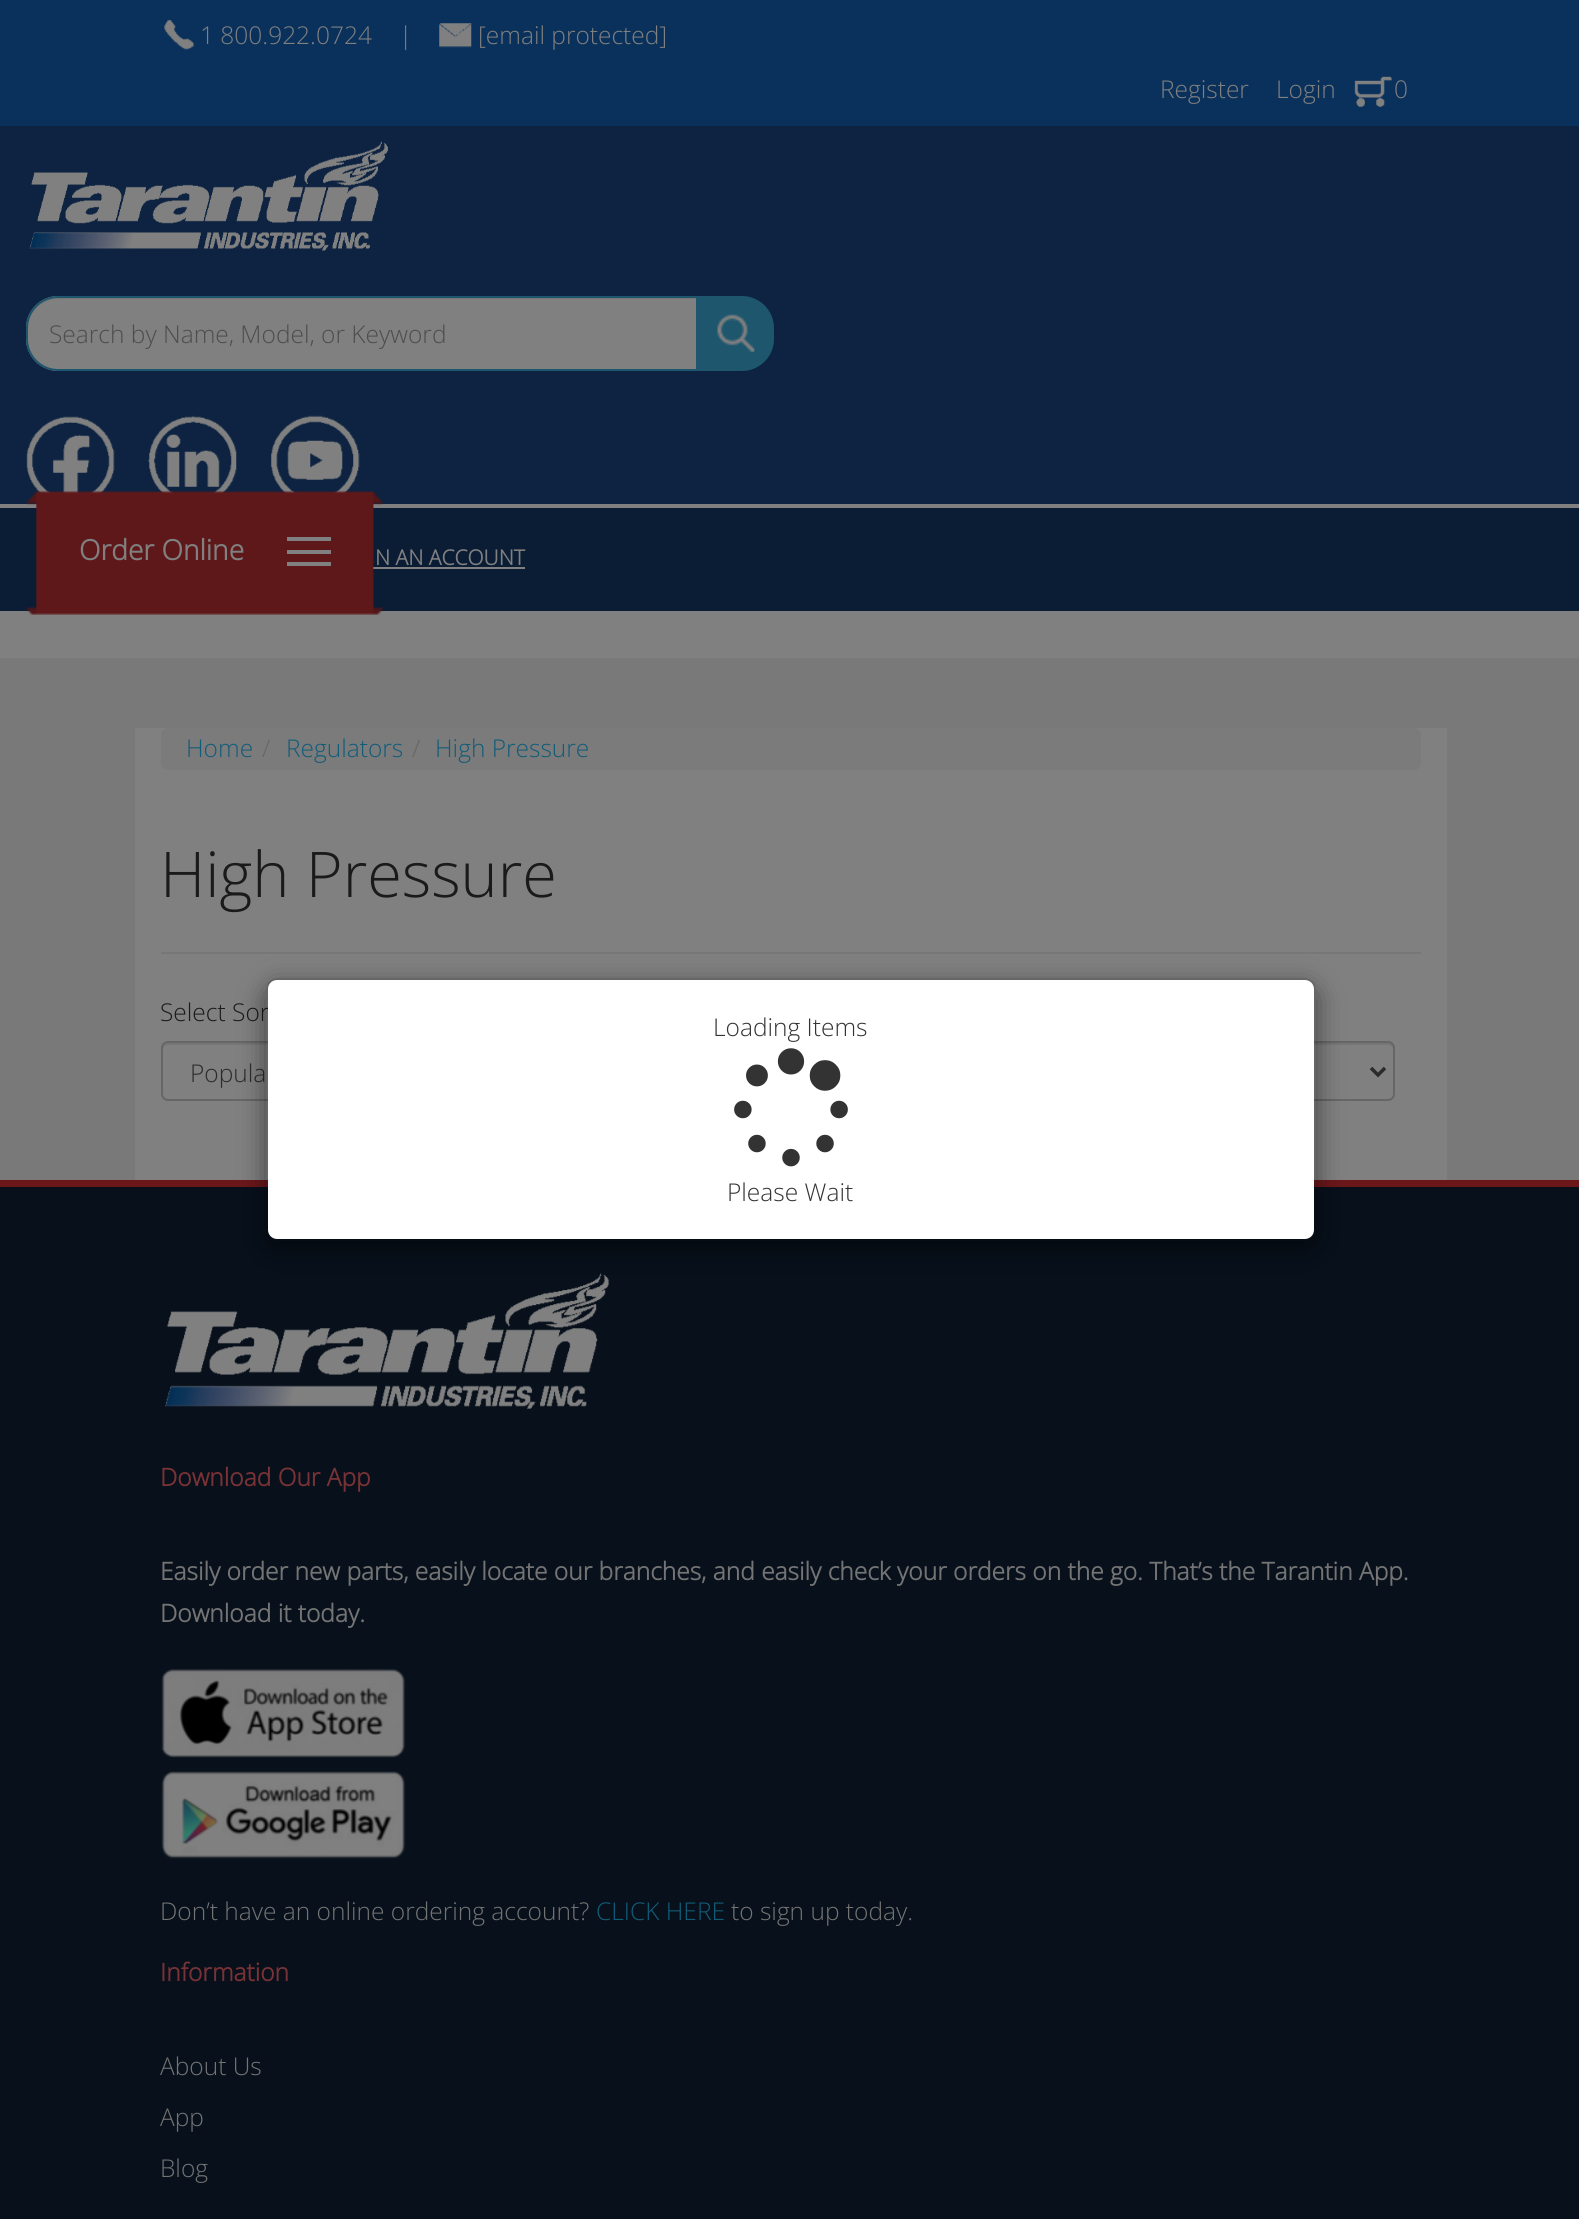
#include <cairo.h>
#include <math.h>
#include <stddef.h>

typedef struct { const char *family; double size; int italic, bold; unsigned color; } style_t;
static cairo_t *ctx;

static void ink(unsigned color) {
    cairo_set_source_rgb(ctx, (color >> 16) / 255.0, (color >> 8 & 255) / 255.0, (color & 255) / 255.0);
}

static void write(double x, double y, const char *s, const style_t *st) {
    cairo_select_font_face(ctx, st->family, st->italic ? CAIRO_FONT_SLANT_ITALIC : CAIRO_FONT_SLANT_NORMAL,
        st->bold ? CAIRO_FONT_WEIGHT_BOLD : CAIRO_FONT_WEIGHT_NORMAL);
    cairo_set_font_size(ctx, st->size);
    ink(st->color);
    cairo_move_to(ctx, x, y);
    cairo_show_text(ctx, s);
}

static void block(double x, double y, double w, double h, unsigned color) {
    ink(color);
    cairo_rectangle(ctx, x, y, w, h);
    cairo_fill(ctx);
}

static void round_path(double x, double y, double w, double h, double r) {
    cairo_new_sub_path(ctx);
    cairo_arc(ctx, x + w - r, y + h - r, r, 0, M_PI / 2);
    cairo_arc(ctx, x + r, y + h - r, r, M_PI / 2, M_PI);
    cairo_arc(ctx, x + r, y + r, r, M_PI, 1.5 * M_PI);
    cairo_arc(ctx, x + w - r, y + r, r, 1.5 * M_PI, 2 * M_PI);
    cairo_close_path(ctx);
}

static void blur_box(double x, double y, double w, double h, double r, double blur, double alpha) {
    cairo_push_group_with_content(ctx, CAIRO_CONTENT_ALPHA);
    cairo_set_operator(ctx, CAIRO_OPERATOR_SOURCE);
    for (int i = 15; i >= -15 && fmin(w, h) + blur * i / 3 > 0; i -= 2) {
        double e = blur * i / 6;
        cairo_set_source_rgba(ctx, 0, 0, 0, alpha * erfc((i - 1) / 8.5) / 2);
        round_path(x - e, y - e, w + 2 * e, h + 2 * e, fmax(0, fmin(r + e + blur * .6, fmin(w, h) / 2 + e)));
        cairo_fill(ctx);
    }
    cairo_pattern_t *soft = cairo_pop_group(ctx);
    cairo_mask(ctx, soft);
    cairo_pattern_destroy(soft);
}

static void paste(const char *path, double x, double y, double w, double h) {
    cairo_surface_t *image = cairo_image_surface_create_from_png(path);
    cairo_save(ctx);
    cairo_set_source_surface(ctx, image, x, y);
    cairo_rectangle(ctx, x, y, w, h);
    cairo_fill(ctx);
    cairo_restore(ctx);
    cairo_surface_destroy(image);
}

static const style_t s1 = {"Open Sans Light", 24.5, 0, 0, 0x808080};
static const style_t s2 = {"Open Sans Light", 24.5, 0, 0, 0x4d4d4d};
static const style_t s3 = {"Open Sans", 21, 0, 1, 0x808080};
static const style_t s4 = {"Open Sans", 28, 0, 1, 0x808080};
static const style_t s5 = {"Open Sans Light", 24.5, 0, 0, 0x115c78};
static const style_t s6 = {"Open Sans Light", 24.5, 0, 0, 0x666666};
static const style_t s7 = {"Open Sans Light", 63, 0, 0, 0x1a1a1a};
static const style_t s8 = {"Open Sans Light", 24.5, 0, 0, 0x1a1a1a};
static const style_t s9 = {"Open Sans Light", 24.5, 0, 0, 0x2b2b2b};
static const style_t s10 = {"Open Sans", 24.5, 0, 1, 0x793235};
static const style_t s11 = {"Open Sans", 24.5, 0, 1, 0x747474};
static const style_t s12 = {"Open Sans Light", 24.5, 0, 0, 0x747474};
static const style_t s13 = {"Open Sans Light", 24.5, 0, 0, 0x333333};

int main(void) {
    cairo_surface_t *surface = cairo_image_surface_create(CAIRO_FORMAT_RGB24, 1579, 2219);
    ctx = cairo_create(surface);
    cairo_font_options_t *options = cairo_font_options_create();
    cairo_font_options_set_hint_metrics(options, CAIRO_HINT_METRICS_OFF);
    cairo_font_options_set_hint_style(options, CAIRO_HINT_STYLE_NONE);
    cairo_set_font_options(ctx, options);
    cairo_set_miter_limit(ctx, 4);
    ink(0x808080);
    cairo_paint(ctx);
    block(0, 0, 1579, 126, 0x0a315b);
    paste("pic1.png", 164, 20, 31, 30);
    write(200, 44, "1 800.922.0724", &s1);
    write(399, 44, "|", &s1);
    paste("pic2.png", 439, 23, 33, 25);
    write(478, 44, "[email protected]", &s1);
    write(1160, 98, "Register", &s1);
    write(1276, 98, "Login", &s1);
    paste("pic3.png", 1354, 76, 38, 31);
    write(1394, 98, "0", &s1);
    block(0, 126, 1579, 378, 0x0d2341);
    paste("pic4.png", 29, 141, 359, 110);
    ink(0x808080);
    cairo_new_path(ctx);
    cairo_move_to(ctx, 58, 296);
    cairo_line_to(ctx, 698, 296);
    cairo_line_to(ctx, 698, 371);
    cairo_line_to(ctx, 58, 371);
    cairo_curve_to(ctx, 40.5, 371, 26, 356.5, 26, 339);
    cairo_line_to(ctx, 26, 328);
    cairo_curve_to(ctx, 26, 310.5, 40.5, 296, 58, 296);
    cairo_close_path(ctx);
    cairo_fill(ctx);
    ink(0x767676);
    cairo_new_path(ctx);
    cairo_move_to(ctx, 58, 299);
    cairo_line_to(ctx, 696, 299);
    cairo_line_to(ctx, 696, 369);
    cairo_line_to(ctx, 697, 369);
    cairo_line_to(ctx, 697, 298);
    cairo_line_to(ctx, 58, 298);
    cairo_curve_to(ctx, 41, 298, 28, 311, 28, 328);
    cairo_line_to(ctx, 28, 329);
    cairo_curve_to(ctx, 28, 313, 41, 299, 58, 299);
    cairo_close_path(ctx);
    cairo_fill(ctx);
    cairo_new_path(ctx);
    cairo_move_to(ctx, 58, 297);
    cairo_line_to(ctx, 697, 297);
    cairo_line_to(ctx, 697, 370);
    cairo_line_to(ctx, 58, 370);
    cairo_curve_to(ctx, 41, 370, 27, 356, 27, 339);
    cairo_line_to(ctx, 27, 328);
    cairo_curve_to(ctx, 27, 311, 41, 297, 58, 297);
    cairo_close_path(ctx);
    ink(0x1e566d);
    cairo_stroke(ctx);
    write(49, 343, "Search by Name, Model, or Keyword", &s2);
    ink(0x1e566d);
    cairo_new_path(ctx);
    cairo_move_to(ctx, 699, 297);
    cairo_line_to(ctx, 742, 297);
    cairo_curve_to(ctx, 759, 297, 773, 311, 773, 328);
    cairo_line_to(ctx, 773, 339);
    cairo_curve_to(ctx, 773, 356, 759, 370, 742, 370);
    cairo_line_to(ctx, 699, 370);
    cairo_close_path(ctx);
    cairo_fill_preserve(ctx);
    cairo_stroke(ctx);
    paste("pic5.png", 717, 314, 38, 38);
    paste("pic6.png", 26, 416, 89, 78);
    paste("pic7.png", 148, 415, 89, 79);
    paste("pic8.png", 271, 415, 89, 79);
    block(0, 508, 1579, 103, 0x0b1d35);
    write(375, 565, "N AN ACCOUNT", &s3);
    block(373, 567, 152, 2, 0x808080);
    paste("pic9.png", 26, 491, 358, 124);
    write(79, 560, "Order Online", &s4);
    block(287, 537, 44, 4, 0x808080);
    block(287, 550, 44, 4, 0x808080);
    block(287, 562, 44, 4, 0x808080);
    block(0, 658, 1579, 522, 0x797979);
    block(135, 728, 1312, 452, 0x808080);
    ink(0x7b7b7b);
    round_path(161, 728, 1260, 42, 7);
    cairo_fill(ctx);
    write(186, 757, "Home", &s5);
    write(262, 757, "/", &s6);
    write(286, 757, "Regulators", &s5);
    write(412, 757, "/", &s6);
    write(435, 757, "High Pressure", &s5);
    block(161, 952, 1260, 2, 0x777777);
    write(160, 897, "High Pressure", &s7);
    write(160, 1021, "Select Sor", &s8);
    ink(0x767676);
    cairo_new_path(ctx);
    cairo_move_to(ctx, 168, 1045);
    cairo_line_to(ctx, 1388, 1045);
    cairo_curve_to(ctx, 1391, 1045, 1393, 1047, 1393, 1050);
    cairo_line_to(ctx, 1393, 1048);
    cairo_curve_to(ctx, 1393, 1045, 1391, 1043, 1388, 1043);
    cairo_line_to(ctx, 168, 1043);
    cairo_curve_to(ctx, 165, 1043, 163, 1045, 163, 1048);
    cairo_line_to(ctx, 163, 1050);
    cairo_curve_to(ctx, 163, 1047, 165, 1045, 168, 1045);
    cairo_close_path(ctx);
    cairo_fill(ctx);
    round_path(162, 1042, 1232, 58, 6);
    ink(0x666666);
    cairo_stroke(ctx);
    cairo_new_path(ctx);
    cairo_move_to(ctx, 1371, 1068);
    cairo_line_to(ctx, 1378, 1075);
    cairo_line_to(ctx, 1385, 1068);
    ink(0x2b2b2b);
    cairo_set_line_width(ctx, 3.5);
    cairo_stroke(ctx);
    write(190, 1082, "Popula", &s9);
    block(0, 1187, 1579, 1032, 0x07101b);
    block(0, 1180, 1579, 7, 0x6b171a);
    paste("pic10.png", 165, 1273, 445, 136);
    write(160, 1486, "Download Our App", &s10);
    write(160, 1580, "Easily order new parts, easily locate our branches, and easily check your orders on the go. That’s the Tarantin App.", &s11);
    write(160, 1622, "Download it today.", &s11);
    paste("pic11.png", 161, 1669, 245, 89);
    paste("pic12.png", 161, 1771, 245, 88);
    write(160, 1920, "Don’t have an online ordering account?", &s12);
    write(596, 1920, "CLICK HERE", &s5);
    write(731, 1920, "to sign up today.", &s12);
    write(160, 1981, "Information", &s10);
    write(160, 2075, "About Us", &s12);
    write(160, 2126, "App", &s12);
    write(160, 2177, "Blog", &s12);
    cairo_save(ctx);
    cairo_set_fill_rule(ctx, CAIRO_FILL_RULE_EVEN_ODD);
    cairo_new_path(ctx);
    cairo_move_to(ctx, 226, 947);
    cairo_line_to(ctx, 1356, 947);
    cairo_line_to(ctx, 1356, 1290);
    cairo_line_to(ctx, 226, 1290);
    cairo_close_path(ctx);
    cairo_move_to(ctx, 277, 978);
    cairo_line_to(ctx, 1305, 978);
    cairo_curve_to(ctx, 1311, 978, 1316, 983, 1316, 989);
    cairo_line_to(ctx, 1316, 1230);
    cairo_curve_to(ctx, 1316, 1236, 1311, 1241, 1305, 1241);
    cairo_line_to(ctx, 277, 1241);
    cairo_curve_to(ctx, 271, 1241, 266, 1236, 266, 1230);
    cairo_line_to(ctx, 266, 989);
    cairo_curve_to(ctx, 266, 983, 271, 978, 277, 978);
    cairo_close_path(ctx);
    cairo_clip(ctx);
    ink(0x000000);
    blur_box(266, 987, 1050, 263, 11, 13, 0.5);
    cairo_restore(ctx);
    ink(0xffffff);
    round_path(268, 980, 1046, 259, 9);
    cairo_fill(ctx);
    round_path(267, 979, 1048, 261, 10);
    cairo_set_source_rgba(ctx, 0, 0, 0, 0.2);
    cairo_set_line_width(ctx, 2);
    cairo_stroke(ctx);
    write(713, 1036, "Loading Items", &s13);
    paste("pic13.png", 734, 1048, 114, 119);
    write(727, 1201, "Please Wait", &s13);
    cairo_surface_write_to_png(surface, "screenshot.png");
    cairo_font_options_destroy(options);
    cairo_destroy(ctx);
    cairo_surface_destroy(surface);
    return 0;
}
